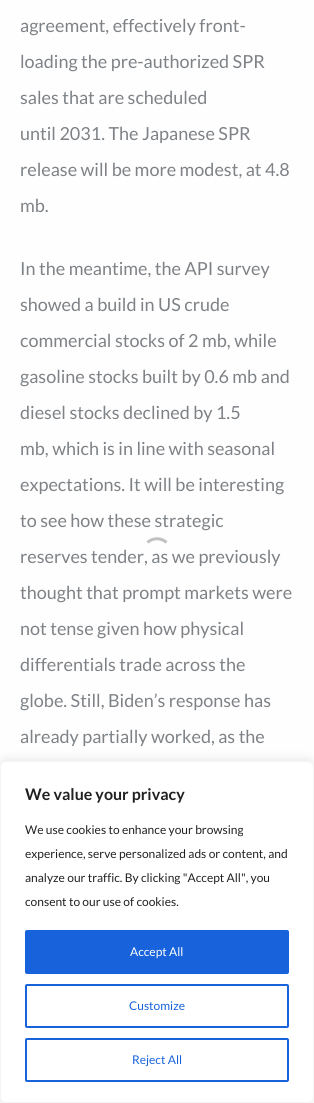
#include <cairo.h>
#include <math.h>
#include <stddef.h>

typedef struct { const char *family; double size; int italic, bold; unsigned color; } style_t;
static cairo_t *ctx;

static void ink(unsigned color) {
    cairo_set_source_rgb(ctx, (color >> 16) / 255.0, (color >> 8 & 255) / 255.0, (color & 255) / 255.0);
}

static void write(double x, double y, const char *s, const style_t *st) {
    cairo_select_font_face(ctx, st->family, st->italic ? CAIRO_FONT_SLANT_ITALIC : CAIRO_FONT_SLANT_NORMAL,
        st->bold ? CAIRO_FONT_WEIGHT_BOLD : CAIRO_FONT_WEIGHT_NORMAL);
    cairo_set_font_size(ctx, st->size);
    ink(st->color);
    cairo_move_to(ctx, x, y);
    cairo_show_text(ctx, s);
}

static void round_path(double x, double y, double w, double h, double r) {
    cairo_new_sub_path(ctx);
    cairo_arc(ctx, x + w - r, y + h - r, r, 0, M_PI / 2);
    cairo_arc(ctx, x + r, y + h - r, r, M_PI / 2, M_PI);
    cairo_arc(ctx, x + r, y + r, r, M_PI, 1.5 * M_PI);
    cairo_arc(ctx, x + w - r, y + r, r, 1.5 * M_PI, 2 * M_PI);
    cairo_close_path(ctx);
}

static void blur_box(double x, double y, double w, double h, double r, double blur, double alpha) {
    cairo_push_group_with_content(ctx, CAIRO_CONTENT_ALPHA);
    cairo_set_operator(ctx, CAIRO_OPERATOR_SOURCE);
    for (int i = 15; i >= -15 && fmin(w, h) + blur * i / 3 > 0; i -= 2) {
        double e = blur * i / 6;
        cairo_set_source_rgba(ctx, 0, 0, 0, alpha * erfc((i - 1) / 8.5) / 2);
        round_path(x - e, y - e, w + 2 * e, h + 2 * e, fmax(0, fmin(r + e + blur * .6, fmin(w, h) / 2 + e)));
        cairo_fill(ctx);
    }
    cairo_pattern_t *soft = cairo_pop_group(ctx);
    cairo_mask(ctx, soft);
    cairo_pattern_destroy(soft);
}

static const style_t s1 = {"Lato", 18, 0, 0, 0x7e8286};
static const style_t s2 = {"Lato", 16, 0, 1, 0x212121};
static const style_t s3 = {"Lato", 12, 0, 0, 0x212121};
static const style_t s4 = {"Lato", 12, 0, 0, 0xffffff};
static const style_t s5 = {"Lato", 12, 0, 0, 0x1863dc};

int main(void) {
    cairo_surface_t *surface = cairo_image_surface_create(CAIRO_FORMAT_RGB24, 314, 1103);
    ctx = cairo_create(surface);
    cairo_font_options_t *options = cairo_font_options_create();
    cairo_font_options_set_hint_metrics(options, CAIRO_HINT_METRICS_OFF);
    cairo_font_options_set_hint_style(options, CAIRO_HINT_STYLE_NONE);
    cairo_set_font_options(ctx, options);
    cairo_set_miter_limit(ctx, 4);
    ink(0xfefefe);
    cairo_paint(ctx);
    write(20, 32, "agreement, effectively front-", &s1);
    write(20, 68, "loading the pre-authorized SPR", &s1);
    write(20, 104, "sales that are scheduled", &s1);
    write(20, 140, "until 2031. The Japanese SPR", &s1);
    write(20, 176, "release will be more modest, at 4.8", &s1);
    write(20, 212, "mb.", &s1);
    write(20, 275, "In the meantime, the API survey", &s1);
    write(20, 311, "showed a build in US crude", &s1);
    write(20, 347, "commercial stocks of 2 mb, while", &s1);
    write(20, 383, "gasoline stocks built by 0.6 mb and", &s1);
    write(20, 419, "diesel stocks declined by 1.5", &s1);
    write(20, 455, "mb, which is in line with seasonal", &s1);
    write(20, 491, "expectations. It will be interesting", &s1);
    write(20, 527, "to see how these strategic", &s1);
    write(20, 563, "reserves tender, as we previously", &s1);
    write(20, 599, "thought that prompt markets were", &s1);
    write(20, 635, "not tense given how physical", &s1);
    write(20, 671, "differentials trade across the", &s1);
    write(20, 707, "globe. Still, Biden’s response has", &s1);
    write(20, 743, "already partially worked, as the", &s1);
    cairo_new_path(ctx);
    cairo_move_to(ctx, 147.5, 542.5);
    cairo_curve_to(ctx, 152.5, 537.5, 161.5, 537.5, 166.5, 542.5);
    ink(0xc0c0c0);
    cairo_set_line_width(ctx, 3);
    cairo_stroke(ctx);
    ink(0xacabab);
    blur_box(0, 760, 314, 342, 6, 5, 0.3);
    ink(0xffffff);
    round_path(0.5, 761.5, 313, 341, 5.5);
    cairo_fill_preserve(ctx);
    ink(0xf4f4f4);
    cairo_set_line_width(ctx, 1);
    cairo_stroke(ctx);
    write(25, 800, "We value your privacy", &s2);
    write(25, 834, "We use cookies to enhance your browsing", &s3);
    write(25, 858, "experience, serve personalized ads or content, and", &s3);
    write(25, 882, "analyze our traffic. By clicking \"Accept All\", you", &s3);
    write(25, 906, "consent to our use of cookies.", &s3);
    ink(0x1863dc);
    round_path(26, 931, 262, 42, 1);
    cairo_fill_preserve(ctx);
    cairo_set_line_width(ctx, 2);
    cairo_stroke(ctx);
    write(130, 956, "Accept All", &s4);
    round_path(26, 985, 262, 42, 1);
    ink(0x1863dc);
    cairo_stroke(ctx);
    write(129, 1010, "Customize", &s5);
    round_path(26, 1039, 262, 42, 1);
    cairo_stroke(ctx);
    write(132, 1064, "Reject All", &s5);
    cairo_surface_write_to_png(surface, "screenshot.png");
    cairo_font_options_destroy(options);
    cairo_destroy(ctx);
    cairo_surface_destroy(surface);
    return 0;
}
